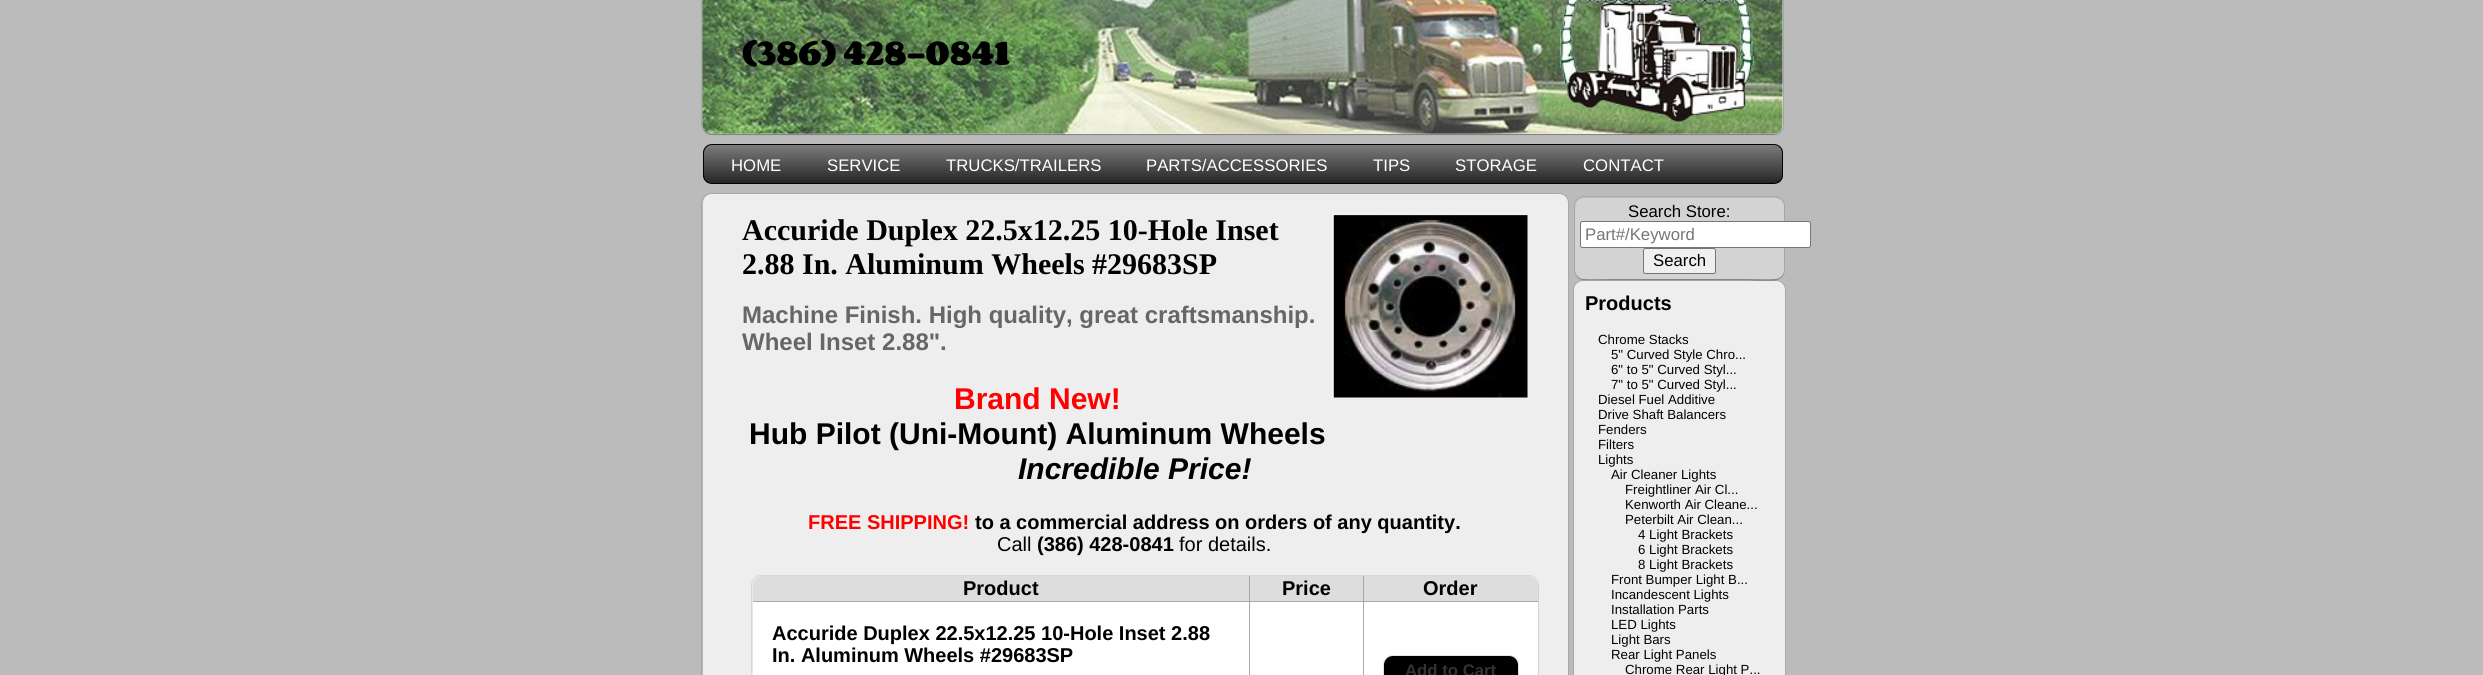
#include <cairo.h>
#include <math.h>
#include <stddef.h>

typedef struct { const char *family; double size; int italic, bold; unsigned color; } style_t;
static cairo_t *ctx;

static void ink(unsigned color) {
    cairo_set_source_rgb(ctx, (color >> 16) / 255.0, (color >> 8 & 255) / 255.0, (color & 255) / 255.0);
}

static void write(double x, double y, const char *s, const style_t *st) {
    cairo_select_font_face(ctx, st->family, st->italic ? CAIRO_FONT_SLANT_ITALIC : CAIRO_FONT_SLANT_NORMAL,
        st->bold ? CAIRO_FONT_WEIGHT_BOLD : CAIRO_FONT_WEIGHT_NORMAL);
    cairo_set_font_size(ctx, st->size);
    ink(st->color);
    cairo_move_to(ctx, x, y);
    cairo_show_text(ctx, s);
}

static void block(double x, double y, double w, double h, unsigned color) {
    ink(color);
    cairo_rectangle(ctx, x, y, w, h);
    cairo_fill(ctx);
}

static void round_path(double x, double y, double w, double h, double r) {
    cairo_new_sub_path(ctx);
    cairo_arc(ctx, x + w - r, y + h - r, r, 0, M_PI / 2);
    cairo_arc(ctx, x + r, y + h - r, r, M_PI / 2, M_PI);
    cairo_arc(ctx, x + r, y + r, r, M_PI, 1.5 * M_PI);
    cairo_arc(ctx, x + w - r, y + r, r, 1.5 * M_PI, 2 * M_PI);
    cairo_close_path(ctx);
}

static void blur_box(double x, double y, double w, double h, double r, double blur, double alpha) {
    cairo_push_group_with_content(ctx, CAIRO_CONTENT_ALPHA);
    cairo_set_operator(ctx, CAIRO_OPERATOR_SOURCE);
    for (int i = 15; i >= -15 && fmin(w, h) + blur * i / 3 > 0; i -= 2) {
        double e = blur * i / 6;
        cairo_set_source_rgba(ctx, 0, 0, 0, alpha * erfc((i - 1) / 8.5) / 2);
        round_path(x - e, y - e, w + 2 * e, h + 2 * e, fmax(0, fmin(r + e + blur * .6, fmin(w, h) / 2 + e)));
        cairo_fill(ctx);
    }
    cairo_pattern_t *soft = cairo_pop_group(ctx);
    cairo_mask(ctx, soft);
    cairo_pattern_destroy(soft);
}

static void paste(const char *path, double x, double y, double w, double h) {
    cairo_surface_t *image = cairo_image_surface_create_from_png(path);
    cairo_save(ctx);
    cairo_set_source_surface(ctx, image, x, y);
    cairo_rectangle(ctx, x, y, w, h);
    cairo_fill(ctx);
    cairo_restore(ctx);
    cairo_surface_destroy(image);
}

static const style_t s1 = {"Corben", 30, 0, 1, 0x000000};
static const style_t s2 = {"Liberation Sans", 16.75, 0, 0, 0xffffff};
static const style_t s3 = {"Liberation Serif", 30, 0, 1, 0x000000};
static const style_t s4 = {"Liberation Sans", 24, 0, 1, 0x666666};
static const style_t s5 = {"Liberation Sans", 30, 0, 1, 0xff0000};
static const style_t s6 = {"Liberation Sans", 30, 0, 1, 0x000000};
static const style_t s7 = {"Liberation Sans", 30, 1, 1, 0x000000};
static const style_t s8 = {"Liberation Sans", 20, 0, 1, 0xff0000};
static const style_t s9 = {"Liberation Sans", 20, 0, 1, 0x000000};
static const style_t s10 = {"Liberation Sans", 20, 0, 0, 0x000000};
static const style_t s11 = {"Liberation Sans", 16.75, 0, 1, 0x333333};
static const style_t s12 = {"Liberation Sans", 16.75, 0, 0, 0x000000};
static const style_t s13 = {"Liberation Sans", 16.75, 0, 0, 0x757575};
static const style_t s14 = {"Liberation Sans", 13.25, 0, 0, 0x000000};

int main(void) {
    cairo_surface_t *surface = cairo_image_surface_create(CAIRO_FORMAT_RGB24, 2483, 675);
    ctx = cairo_create(surface);
    cairo_font_options_t *options = cairo_font_options_create();
    cairo_font_options_set_hint_metrics(options, CAIRO_HINT_METRICS_OFF);
    cairo_font_options_set_hint_style(options, CAIRO_HINT_STYLE_NONE);
    cairo_set_font_options(ctx, options);
    cairo_set_miter_limit(ctx, 4);
    cairo_pattern_t *gradient;
    ink(0xbbbbbb);
    cairo_paint(ctx);
    ink(0x000002);
    blur_box(703, -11, 1080, 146, 9, 0.5, 0.1);
    cairo_set_source_rgba(ctx, 0, 0, 0.008, 0.15);
    cairo_new_path(ctx);
    cairo_move_to(ctx, 704, 129);
    cairo_curve_to(ctx, 705, 133, 708, 135, 712, 135);
    cairo_line_to(ctx, 1774, 135);
    cairo_curve_to(ctx, 1779, 135, 1783, 131, 1783, 126);
    cairo_line_to(ctx, 1783, -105);
    cairo_line_to(ctx, 1782, -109);
    cairo_line_to(ctx, 1782, -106);
    cairo_line_to(ctx, 1782, 125);
    cairo_curve_to(ctx, 1782, 130, 1779, 134, 1774, 134);
    cairo_line_to(ctx, 711, 134);
    cairo_curve_to(ctx, 708, 134, 705, 132, 704, 129);
    cairo_close_path(ctx);
    cairo_fill(ctx);
    round_path(701.5, -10.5, 1082, 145, 9.5);
    cairo_set_source_rgba(ctx, 0, 0, 0.008, 0.1);
    cairo_set_line_width(ctx, 1);
    cairo_stroke(ctx);
    ink(0xeeeeee);
    round_path(703, -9, 1080, 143, 9);
    cairo_fill(ctx);
    paste("pic1.png", 702, 0, 1081, 134);
    write(742, 65, "(386) 428-0841", &s1);
    paste("pic2.png", 1559, 0, 196, 123);
    cairo_save(ctx);
    round_path(703, 144, 1080, 40, 9);
    cairo_clip(ctx);
    gradient = cairo_pattern_create_linear(1243, 145, 1243, 183);
    cairo_pattern_add_color_stop_rgba(gradient, 0, 0.486, 0.486, 0.486, 1);
    cairo_pattern_add_color_stop_rgba(gradient, 1, 0.149, 0.149, 0.149, 1);
    cairo_set_source(ctx, gradient);
    cairo_pattern_destroy(gradient);
    cairo_rectangle(ctx, 703, 145, 1080, 38);
    cairo_fill(ctx);
    cairo_restore(ctx);
    round_path(703.5, 144.5, 1079, 39, 8.5);
    cairo_stroke(ctx);
    write(731, 171, "HOME", &s2);
    write(827, 171, "SERVICE", &s2);
    write(946, 171, "TRUCKS/TRAILERS", &s2);
    write(1146, 171, "PARTS/ACCESSORIES", &s2);
    write(1373, 171, "TIPS", &s2);
    write(1455, 171, "STORAGE", &s2);
    write(1583, 171, "CONTACT", &s2);
    ink(0x000002);
    blur_box(703, 195, 865, 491, 9, 0.5, 0.1);
    round_path(701.5, 193.5, 867, 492, 9.5);
    ink(0xa8a8a8);
    cairo_stroke(ctx);
    ink(0xeeeeee);
    round_path(703, 194, 865, 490, 9);
    cairo_fill(ctx);
    write(742, 240, "Accuride Duplex 22.5x12.25 10-Hole Inset", &s3);
    write(742, 274, "2.88 In. Aluminum Wheels #29683SP", &s3);
    paste("pic3.png", 1332, 213, 196, 185);
    write(742, 323, "Machine Finish. High quality, great craftsmanship.", &s4);
    write(742, 350, "Wheel Inset 2.88\".", &s4);
    write(954, 409, "Brand New!", &s5);
    write(749, 444, "Hub Pilot (Uni-Mount) Aluminum Wheels", &s6);
    write(1018, 479, "Incredible Price!", &s7);
    write(808, 529, "FREE SHIPPING!", &s8);
    write(975, 529, "to a commercial address on orders of any quantity.", &s9);
    write(997, 551, "Call", &s10);
    write(1037, 551, "(386) 428-0841", &s9);
    write(1179, 551, "for details.", &s10);
    ink(0x000002);
    blur_box(753, 578, 785, 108, 9, 0.5, 0.1);
    round_path(751.5, 575.5, 787, 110, 9.5);
    cairo_set_source_rgba(ctx, 0, 0, 0.008, 0.1);
    cairo_stroke(ctx);
    ink(0xffffff);
    round_path(753, 576, 785, 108, 9);
    cairo_fill(ctx);
    ink(0xdddddd);
    cairo_new_path(ctx);
    cairo_move_to(ctx, 762, 576);
    cairo_line_to(ctx, 1250, 576);
    cairo_line_to(ctx, 1250, 601);
    cairo_line_to(ctx, 753, 601);
    cairo_line_to(ctx, 753, 585);
    cairo_curve_to(ctx, 753, 580, 757, 576, 762, 576);
    cairo_close_path(ctx);
    cairo_fill(ctx);
    write(963, 595, "Product", &s9);
    block(1250, 576, 113, 25, 0xdddddd);
    block(1363, 601, 175, 1, 0xa9a9a9);
    block(1363, 601, 1, 74, 0xa9a9a9);
    block(1249, 601, 115, 1, 0xa9a9a9);
    block(1249, 601, 1, 74, 0xa9a9a9);
    block(753, 601, 497, 1, 0xa9a9a9);
    block(1249, 576, 1, 27, 0xa9a9a9);
    write(1282, 595, "Price", &s9);
    ink(0xdddddd);
    cairo_new_path(ctx);
    cairo_move_to(ctx, 1363, 576);
    cairo_line_to(ctx, 1529, 576);
    cairo_curve_to(ctx, 1534, 576, 1538, 580, 1538, 585);
    cairo_line_to(ctx, 1538, 601);
    cairo_line_to(ctx, 1363, 601);
    cairo_close_path(ctx);
    cairo_fill(ctx);
    block(1363, 576, 1, 27, 0xa9a9a9);
    write(1423, 595, "Order", &s9);
    write(772, 640, "Accuride Duplex 22.5x12.25 10-Hole Inset 2.88", &s9);
    write(772, 662, "In. Aluminum Wheels #29683SP", &s9);
    ink(0x000002);
    blur_box(1384, 658, 134, 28, 9, 0.5, 0.1);
    cairo_set_source_rgba(ctx, 0, 0, 0.008, 0.1);
    cairo_new_path(ctx);
    cairo_move_to(ctx, 1393, 655);
    cairo_line_to(ctx, 1509, 655);
    cairo_curve_to(ctx, 1515, 655, 1519, 659, 1519, 665);
    cairo_line_to(ctx, 1519, 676);
    cairo_curve_to(ctx, 1519, 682, 1515, 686, 1509, 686);
    cairo_line_to(ctx, 1393, 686);
    cairo_curve_to(ctx, 1387, 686, 1383, 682, 1383, 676);
    cairo_line_to(ctx, 1383, 665);
    cairo_curve_to(ctx, 1383, 659, 1387, 655, 1393, 655);
    cairo_close_path(ctx);
    cairo_fill(ctx);
    ink(0x000000);
    cairo_new_path(ctx);
    cairo_move_to(ctx, 1393, 656);
    cairo_line_to(ctx, 1509, 656);
    cairo_curve_to(ctx, 1514, 656, 1518, 660, 1518, 665);
    cairo_line_to(ctx, 1518, 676);
    cairo_curve_to(ctx, 1518, 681, 1514, 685, 1509, 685);
    cairo_line_to(ctx, 1393, 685);
    cairo_curve_to(ctx, 1388, 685, 1384, 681, 1384, 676);
    cairo_line_to(ctx, 1384, 665);
    cairo_curve_to(ctx, 1384, 660, 1388, 656, 1393, 656);
    cairo_close_path(ctx);
    cairo_fill(ctx);
    write(1405, 676, "Add to Cart", &s11);
    ink(0x000002);
    blur_box(1575, 199, 209, 81, 9, 0.5, 0.1);
    cairo_set_source_rgba(ctx, 0, 0, 0.008, 0.15);
    cairo_new_path(ctx);
    cairo_move_to(ctx, 1575, 270);
    cairo_curve_to(ctx, 1575, 275, 1578, 280, 1584, 280);
    cairo_line_to(ctx, 1743, 280);
    cairo_curve_to(ctx, 1756, 280, 1781, 286, 1784, 273);
    cairo_line_to(ctx, 1784, 206);
    cairo_line_to(ctx, 1784, 272);
    cairo_curve_to(ctx, 1781, 284, 1756, 279, 1743, 279);
    cairo_line_to(ctx, 1616, 279);
    cairo_curve_to(ctx, 1600, 279, 1575, 284, 1575, 270);
    cairo_close_path(ctx);
    cairo_fill(ctx);
    round_path(1574.5, 196.5, 210, 83, 9.5);
    cairo_set_source_rgba(ctx, 0, 0, 0.008, 0.1);
    cairo_stroke(ctx);
    ink(0xd3d3d3);
    round_path(1575, 198, 209, 81, 9);
    cairo_fill(ctx);
    write(1628, 217, "Search Store:", &s12);
    ink(0xffffff);
    round_path(1580.5, 221.5, 230, 26, 2);
    cairo_fill_preserve(ctx);
    ink(0x767676);
    cairo_stroke(ctx);
    write(1585, 240, "Part#/Keyword", &s13);
    ink(0xefefef);
    round_path(1643.5, 248.5, 72, 25, 2);
    cairo_fill_preserve(ctx);
    ink(0x767676);
    cairo_stroke(ctx);
    write(1653, 266, "Search", &s12);
    round_path(1573.5, 280.5, 212, 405, 9.5);
    cairo_set_source_rgba(ctx, 0, 0, 0.008, 0.1);
    cairo_stroke(ctx);
    ink(0xeeeeee);
    round_path(1574, 281, 211, 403, 9);
    cairo_fill(ctx);
    write(1585, 310, "Products", &s9);
    write(1598, 344, "Chrome Stacks", &s14);
    write(1611, 359, "5\" Curved Style Chro...", &s14);
    write(1611, 374, "6\" to 5\" Curved Styl...", &s14);
    write(1611, 389, "7\" to 5\" Curved Styl...", &s14);
    write(1598, 404, "Diesel Fuel Additive", &s14);
    write(1598, 419, "Drive Shaft Balancers", &s14);
    write(1598, 434, "Fenders", &s14);
    write(1598, 449, "Filters", &s14);
    write(1598, 464, "Lights", &s14);
    write(1611, 479, "Air Cleaner Lights", &s14);
    write(1625, 494, "Freightliner Air Cl...", &s14);
    write(1625, 509, "Kenworth Air Cleane...", &s14);
    write(1625, 524, "Peterbilt Air Clean...", &s14);
    write(1638, 539, "4 Light Brackets", &s14);
    write(1638, 554, "6 Light Brackets", &s14);
    write(1638, 569, "8 Light Brackets", &s14);
    write(1611, 584, "Front Bumper Light B...", &s14);
    write(1611, 599, "Incandescent Lights", &s14);
    write(1611, 614, "Installation Parts", &s14);
    write(1611, 629, "LED Lights", &s14);
    write(1611, 644, "Light Bars", &s14);
    write(1611, 659, "Rear Light Panels", &s14);
    write(1625, 674, "Chrome Rear Light P...", &s14);
    cairo_surface_write_to_png(surface, "screenshot.png");
    cairo_font_options_destroy(options);
    cairo_destroy(ctx);
    cairo_surface_destroy(surface);
    return 0;
}
